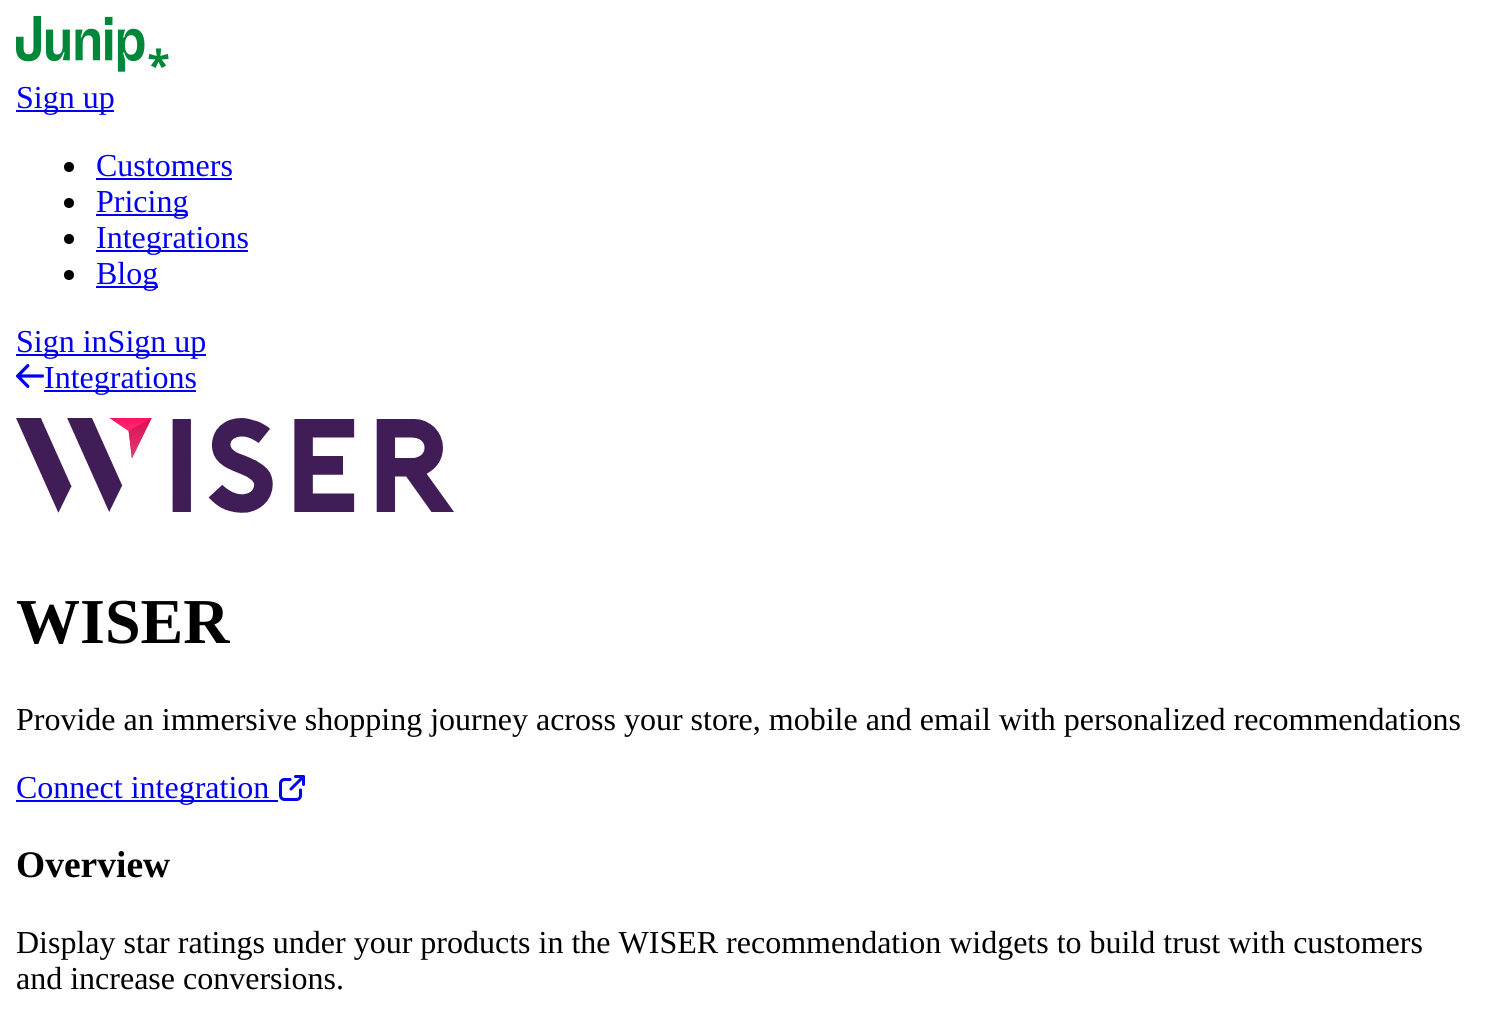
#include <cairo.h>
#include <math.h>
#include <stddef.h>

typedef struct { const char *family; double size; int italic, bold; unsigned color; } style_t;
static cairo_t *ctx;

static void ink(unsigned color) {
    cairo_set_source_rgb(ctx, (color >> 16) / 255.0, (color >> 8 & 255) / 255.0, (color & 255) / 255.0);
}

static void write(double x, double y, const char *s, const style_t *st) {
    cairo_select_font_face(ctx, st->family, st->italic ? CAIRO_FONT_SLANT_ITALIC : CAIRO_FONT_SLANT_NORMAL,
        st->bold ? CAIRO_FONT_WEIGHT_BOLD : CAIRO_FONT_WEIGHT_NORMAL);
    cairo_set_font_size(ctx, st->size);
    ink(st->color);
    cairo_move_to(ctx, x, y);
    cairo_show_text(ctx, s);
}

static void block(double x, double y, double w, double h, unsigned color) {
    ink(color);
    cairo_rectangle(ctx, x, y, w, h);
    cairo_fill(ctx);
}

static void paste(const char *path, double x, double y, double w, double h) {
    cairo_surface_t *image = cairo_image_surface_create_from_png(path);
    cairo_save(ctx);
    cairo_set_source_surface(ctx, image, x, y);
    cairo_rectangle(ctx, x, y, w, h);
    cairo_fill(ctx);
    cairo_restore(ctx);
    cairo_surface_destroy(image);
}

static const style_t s1 = {"Liberation Serif", 32, 0, 0, 0x0000ee};
static const style_t s2 = {"Liberation Serif", 64, 0, 1, 0x000000};
static const style_t s3 = {"Liberation Serif", 32, 0, 0, 0x000000};
static const style_t s4 = {"Liberation Serif", 37.5, 0, 1, 0x000000};

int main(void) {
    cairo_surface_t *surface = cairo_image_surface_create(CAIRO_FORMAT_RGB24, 1491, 1030);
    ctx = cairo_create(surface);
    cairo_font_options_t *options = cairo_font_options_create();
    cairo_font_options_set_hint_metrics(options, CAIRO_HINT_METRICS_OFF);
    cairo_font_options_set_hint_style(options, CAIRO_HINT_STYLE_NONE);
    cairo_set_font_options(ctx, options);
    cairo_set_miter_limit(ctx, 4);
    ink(0xffffff);
    cairo_paint(ctx);
    paste("pic1.png", 16, 16, 153, 56);
    block(16, 110, 98, 2, 0x0000ee);
    write(16, 108, "Sign up", &s1);
    ink(0x000000);
    cairo_new_path(ctx);
    cairo_arc(ctx, 69, 167, 5, 0, 2 * M_PI);
    cairo_fill(ctx);
    write(96, 176, "Customers", &s1);
    block(96, 178, 136, 2, 0x0000ee);
    ink(0x000000);
    cairo_new_path(ctx);
    cairo_arc(ctx, 69, 203, 5, 0, 2 * M_PI);
    cairo_fill(ctx);
    block(96, 214, 92, 2, 0x0000ee);
    write(96, 212, "Pricing", &s1);
    ink(0x000000);
    cairo_new_path(ctx);
    cairo_arc(ctx, 69, 239, 5, 0, 2 * M_PI);
    cairo_fill(ctx);
    block(96, 250, 152, 2, 0x0000ee);
    write(96, 248, "Integrations", &s1);
    ink(0x000000);
    cairo_new_path(ctx);
    cairo_arc(ctx, 69, 275, 5, 0, 2 * M_PI);
    cairo_fill(ctx);
    block(96, 286, 62, 2, 0x0000ee);
    write(96, 284, "Blog", &s1);
    block(16, 354, 190, 2, 0x0000ee);
    write(16, 352, "Sign inSign up", &s1);
    paste("pic2.png", 16, 364, 28, 24);
    block(44, 390, 152, 2, 0x0000ee);
    write(44, 388, "Integrations", &s1);
    paste("pic3.png", 16, 418, 438, 95);
    write(16, 643, "WISER", &s2);
    write(16, 730, "Provide an immersive shopping journey across your store, mobile and email with personalized recommendations", &s3);
    block(16, 800, 262, 2, 0x0000ee);
    write(16, 798, "Connect integration", &s1);
    paste("pic4.png", 279, 775, 26, 26);
    write(16, 877, "Overview", &s4);
    write(16, 953, "Display star ratings under your products in the WISER recommendation widgets to build trust with customers", &s3);
    write(16, 989, "and increase conversions.", &s3);
    cairo_surface_write_to_png(surface, "screenshot.png");
    cairo_font_options_destroy(options);
    cairo_destroy(ctx);
    cairo_surface_destroy(surface);
    return 0;
}
